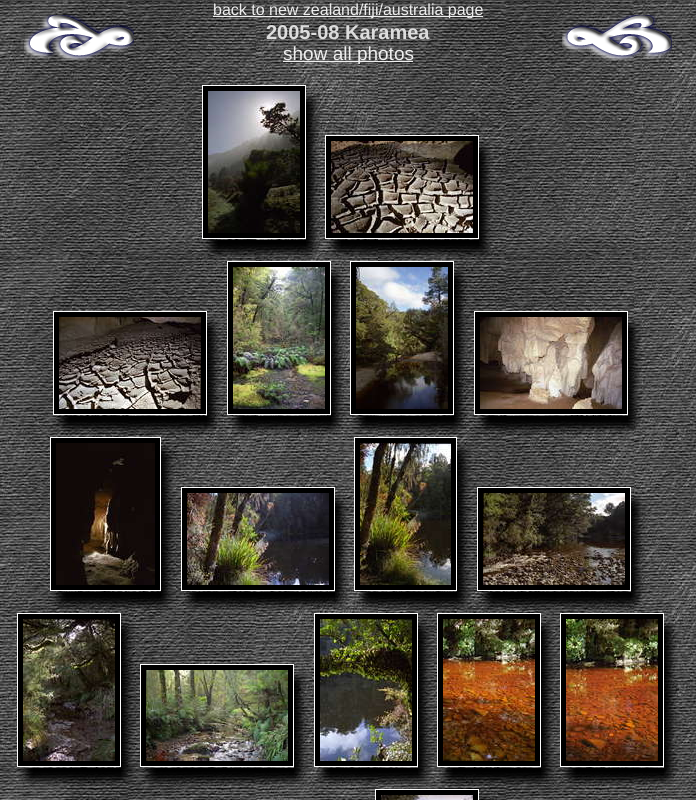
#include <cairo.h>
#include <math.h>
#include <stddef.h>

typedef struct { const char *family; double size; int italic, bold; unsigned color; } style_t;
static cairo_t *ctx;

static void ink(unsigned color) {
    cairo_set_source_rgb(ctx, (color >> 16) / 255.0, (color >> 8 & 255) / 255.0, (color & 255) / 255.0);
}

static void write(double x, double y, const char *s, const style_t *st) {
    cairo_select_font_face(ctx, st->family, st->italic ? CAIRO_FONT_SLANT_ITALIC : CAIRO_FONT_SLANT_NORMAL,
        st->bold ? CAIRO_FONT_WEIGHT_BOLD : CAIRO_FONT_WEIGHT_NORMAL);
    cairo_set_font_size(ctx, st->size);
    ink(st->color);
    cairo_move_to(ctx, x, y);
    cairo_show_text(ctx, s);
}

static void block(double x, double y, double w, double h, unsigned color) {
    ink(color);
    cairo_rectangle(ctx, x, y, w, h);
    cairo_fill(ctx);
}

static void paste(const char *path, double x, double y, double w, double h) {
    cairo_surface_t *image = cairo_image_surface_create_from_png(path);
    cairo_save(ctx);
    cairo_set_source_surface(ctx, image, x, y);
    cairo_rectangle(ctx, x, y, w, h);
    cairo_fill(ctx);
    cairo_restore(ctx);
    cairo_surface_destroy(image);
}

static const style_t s1 = {"Liberation Sans", 16, 0, 0, 0xeeeeee};
static const style_t s2 = {"Liberation Sans", 20, 0, 1, 0xdddddd};
static const style_t s3 = {"Liberation Sans", 19, 0, 0, 0xeeeeee};

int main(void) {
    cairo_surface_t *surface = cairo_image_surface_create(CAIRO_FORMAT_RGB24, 696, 800);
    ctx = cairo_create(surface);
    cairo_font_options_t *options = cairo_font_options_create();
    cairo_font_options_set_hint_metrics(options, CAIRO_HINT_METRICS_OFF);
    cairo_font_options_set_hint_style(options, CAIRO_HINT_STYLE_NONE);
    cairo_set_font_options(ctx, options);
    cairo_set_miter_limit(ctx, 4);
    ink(0xffffff);
    cairo_paint(ctx);
    paste("pic1.png", 0, 0, 696, 800);
    block(213, 16, 270, 1, 0xeeeeee);
    write(213, 15, "back to new zealand/fiji/australia page", &s1);
    paste("pic2.png", 24, 15, 110, 45);
    write(266, 39, "2005-08 Karamea", &s2);
    paste("pic3.png", 562, 15, 110, 45);
    block(283, 61, 130, 1, 0xeeeeee);
    write(283, 60, "show all photos", &s3);
    ink(0x000000);
    cairo_rectangle(ctx, 202.5, 85.5, 103, 153);
    cairo_fill_preserve(ctx);
    ink(0xffffff);
    cairo_set_line_width(ctx, 1);
    cairo_stroke(ctx);
    paste("pic4.png", 208, 91, 92, 142);
    paste("pic5.png", 306, 90, 14, 150);
    paste("pic6.png", 204, 240, 102, 19);
    paste("pic7.png", 306, 240, 14, 18);
    ink(0x000000);
    cairo_rectangle(ctx, 325.5, 135.5, 153, 103);
    cairo_fill_preserve(ctx);
    ink(0xffffff);
    cairo_stroke(ctx);
    paste("pic8.png", 331, 141, 142, 92);
    paste("pic9.png", 479, 140, 14, 100);
    paste("pic10.png", 326, 240, 153, 19);
    paste("pic11.png", 479, 240, 14, 18);
    ink(0x000000);
    cairo_rectangle(ctx, 53.5, 311.5, 153, 103);
    cairo_fill_preserve(ctx);
    ink(0xffffff);
    cairo_stroke(ctx);
    paste("pic12.png", 59, 317, 142, 92);
    paste("pic13.png", 207, 316, 14, 100);
    paste("pic14.png", 54, 416, 153, 19);
    paste("pic15.png", 207, 416, 14, 19);
    ink(0x000000);
    cairo_rectangle(ctx, 227.5, 261.5, 103, 153);
    cairo_fill_preserve(ctx);
    ink(0xffffff);
    cairo_stroke(ctx);
    paste("pic16.png", 233, 267, 92, 142);
    paste("pic17.png", 331, 266, 14, 150);
    paste("pic18.png", 228, 416, 103, 19);
    paste("pic19.png", 331, 416, 14, 19);
    ink(0x000000);
    cairo_rectangle(ctx, 350.5, 261.5, 103, 153);
    cairo_fill_preserve(ctx);
    ink(0xffffff);
    cairo_stroke(ctx);
    paste("pic20.png", 356, 267, 92, 142);
    paste("pic21.png", 454, 266, 14, 150);
    paste("pic22.png", 351, 416, 103, 19);
    paste("pic23.png", 454, 416, 14, 19);
    ink(0x000000);
    cairo_rectangle(ctx, 474.5, 311.5, 153, 103);
    cairo_fill_preserve(ctx);
    ink(0xffffff);
    cairo_stroke(ctx);
    paste("pic24.png", 480, 317, 142, 92);
    paste("pic25.png", 628, 316, 14, 100);
    paste("pic26.png", 475, 416, 153, 19);
    paste("pic27.png", 628, 416, 14, 19);
    ink(0x000000);
    cairo_rectangle(ctx, 50.5, 437.5, 110, 153);
    cairo_fill_preserve(ctx);
    ink(0xffffff);
    cairo_stroke(ctx);
    paste("pic28.png", 56, 443, 99, 142);
    paste("pic29.png", 161, 442, 14, 150);
    paste("pic30.png", 51, 592, 110, 19);
    paste("pic31.png", 161, 592, 14, 19);
    ink(0x000000);
    cairo_rectangle(ctx, 181.5, 487.5, 153, 103);
    cairo_fill_preserve(ctx);
    ink(0xffffff);
    cairo_stroke(ctx);
    paste("pic32.png", 187, 493, 142, 92);
    paste("pic33.png", 335, 493, 14, 99);
    paste("pic34.png", 182, 592, 153, 19);
    paste("pic35.png", 335, 592, 14, 19);
    ink(0x000000);
    cairo_rectangle(ctx, 354.5, 437.5, 102, 153);
    cairo_fill_preserve(ctx);
    ink(0xffffff);
    cairo_stroke(ctx);
    paste("pic36.png", 360, 443, 91, 142);
    paste("pic37.png", 457, 443, 14, 149);
    paste("pic38.png", 355, 592, 102, 19);
    paste("pic39.png", 457, 592, 14, 19);
    ink(0x000000);
    cairo_rectangle(ctx, 477.5, 487.5, 153, 103);
    cairo_fill_preserve(ctx);
    ink(0xffffff);
    cairo_stroke(ctx);
    paste("pic40.png", 483, 493, 142, 92);
    paste("pic41.png", 631, 493, 14, 99);
    paste("pic42.png", 478, 592, 153, 19);
    paste("pic43.png", 631, 592, 14, 19);
    ink(0x000000);
    cairo_rectangle(ctx, 17.5, 613.5, 103, 153);
    cairo_fill_preserve(ctx);
    ink(0xffffff);
    cairo_stroke(ctx);
    paste("pic44.png", 23, 619, 92, 142);
    paste("pic45.png", 121, 618, 14, 150);
    paste("pic46.png", 18, 768, 103, 19);
    paste("pic47.png", 121, 768, 14, 19);
    ink(0x000000);
    cairo_rectangle(ctx, 140.5, 664.5, 153, 102);
    cairo_fill_preserve(ctx);
    ink(0xffffff);
    cairo_stroke(ctx);
    paste("pic48.png", 146, 670, 142, 91);
    paste("pic49.png", 294, 670, 14, 98);
    paste("pic50.png", 141, 768, 153, 19);
    paste("pic51.png", 294, 768, 14, 18);
    ink(0x000000);
    cairo_rectangle(ctx, 314.5, 613.5, 103, 153);
    cairo_fill_preserve(ctx);
    ink(0xffffff);
    cairo_stroke(ctx);
    paste("pic52.png", 320, 619, 92, 142);
    paste("pic53.png", 418, 618, 14, 150);
    paste("pic54.png", 315, 768, 103, 19);
    paste("pic55.png", 418, 768, 14, 18);
    ink(0x000000);
    cairo_rectangle(ctx, 437.5, 613.5, 103, 153);
    cairo_fill_preserve(ctx);
    ink(0xffffff);
    cairo_stroke(ctx);
    paste("pic56.png", 443, 619, 92, 142);
    paste("pic57.png", 541, 618, 14, 150);
    paste("pic58.png", 438, 768, 103, 19);
    paste("pic59.png", 541, 768, 14, 18);
    ink(0x000000);
    cairo_rectangle(ctx, 560.5, 613.5, 103, 153);
    cairo_fill_preserve(ctx);
    ink(0xffffff);
    cairo_stroke(ctx);
    paste("pic60.png", 566, 619, 92, 142);
    paste("pic61.png", 664, 618, 14, 150);
    paste("pic62.png", 561, 768, 103, 19);
    paste("pic63.png", 664, 768, 14, 19);
    ink(0x000000);
    cairo_rectangle(ctx, 375.5, 789.5, 103, 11);
    cairo_fill_preserve(ctx);
    ink(0xffffff);
    cairo_stroke(ctx);
    paste("pic64.png", 381, 795, 92, 5);
    paste("pic65.png", 479, 795, 11, 5);
    cairo_surface_write_to_png(surface, "screenshot.png");
    cairo_font_options_destroy(options);
    cairo_destroy(ctx);
    cairo_surface_destroy(surface);
    return 0;
}
